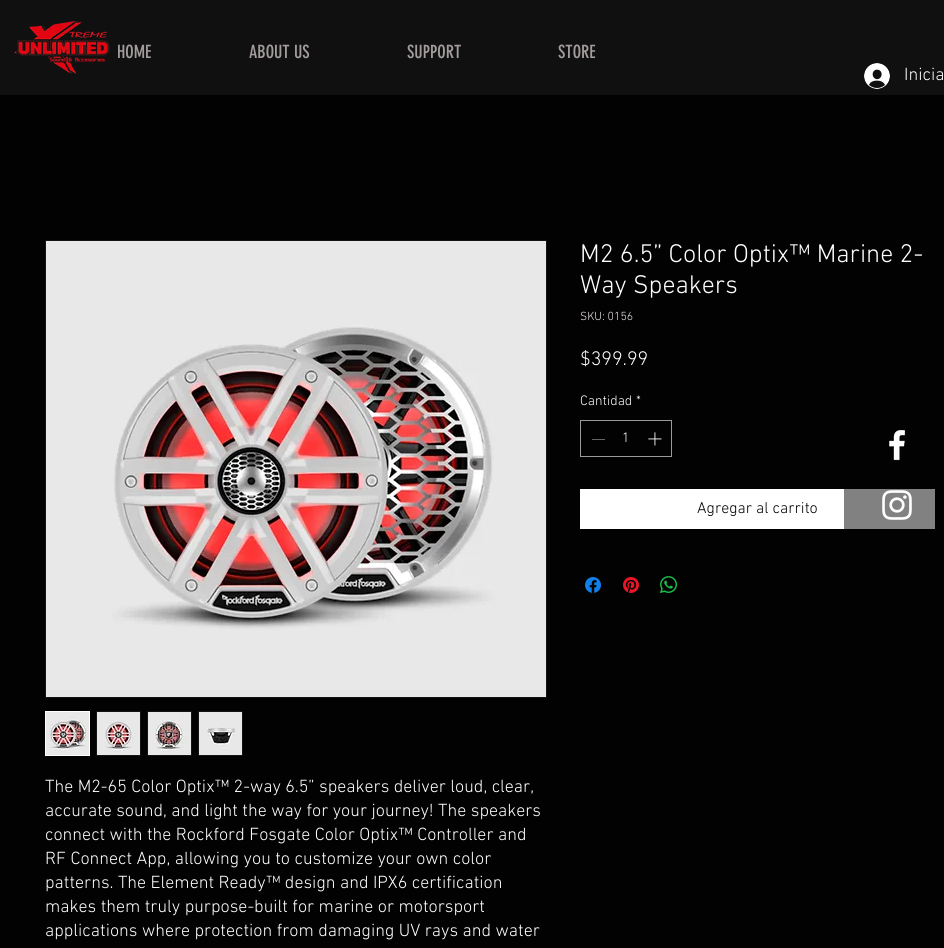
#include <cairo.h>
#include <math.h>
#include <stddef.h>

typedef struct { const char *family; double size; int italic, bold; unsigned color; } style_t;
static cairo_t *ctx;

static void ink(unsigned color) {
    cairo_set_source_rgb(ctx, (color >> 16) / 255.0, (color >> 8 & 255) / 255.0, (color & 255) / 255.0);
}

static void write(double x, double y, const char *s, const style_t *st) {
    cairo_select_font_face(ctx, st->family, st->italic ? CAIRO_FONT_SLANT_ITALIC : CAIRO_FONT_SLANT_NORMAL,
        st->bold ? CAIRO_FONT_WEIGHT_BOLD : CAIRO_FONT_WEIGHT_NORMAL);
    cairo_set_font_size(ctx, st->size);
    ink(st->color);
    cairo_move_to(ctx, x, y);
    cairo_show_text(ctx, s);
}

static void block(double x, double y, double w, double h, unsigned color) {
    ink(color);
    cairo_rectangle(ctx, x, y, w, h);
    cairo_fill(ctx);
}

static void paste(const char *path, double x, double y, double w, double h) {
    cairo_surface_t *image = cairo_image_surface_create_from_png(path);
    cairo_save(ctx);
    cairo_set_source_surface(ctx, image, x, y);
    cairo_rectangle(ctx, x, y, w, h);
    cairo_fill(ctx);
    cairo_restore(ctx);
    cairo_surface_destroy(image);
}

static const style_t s1 = {"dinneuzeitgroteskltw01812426", 18, 0, 0, 0xa29c9c};
static const style_t s2 = {"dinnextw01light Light", 18, 0, 0, 0xffffff};
static const style_t s3 = {"dinnextw01light Light", 26, 0, 0, 0xffffff};
static const style_t s4 = {"dinnextw01light Light", 12, 0, 0, 0xeee6e6};
static const style_t s5 = {"dinnextw01light Light", 20, 0, 0, 0xffffff};
static const style_t s6 = {"dinnextw01light Light", 14, 0, 0, 0xffffff};
static const style_t s7 = {"dinnextw01light Light", 16, 0, 0, 0x020202};

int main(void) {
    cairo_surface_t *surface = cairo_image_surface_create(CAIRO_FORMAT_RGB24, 944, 948);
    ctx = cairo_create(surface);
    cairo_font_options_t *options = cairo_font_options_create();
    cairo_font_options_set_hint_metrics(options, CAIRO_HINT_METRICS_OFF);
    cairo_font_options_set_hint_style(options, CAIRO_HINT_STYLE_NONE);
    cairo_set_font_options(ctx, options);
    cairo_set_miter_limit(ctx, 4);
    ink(0x020202);
    cairo_paint(ctx);
    block(0, 0, 944, 95, 0x101010);
    write(117, 58, "HOME", &s1);
    write(249, 58, "ABOUT US", &s1);
    write(407, 58, "SUPPORT", &s1);
    write(558, 58, "STORE", &s1);
    paste("pic1.png", 14, 20, 96, 54);
    paste("pic2.png", 864, 63, 26, 26);
    write(904, 80, "Inicia", &s2);
    write(580, 262, "M2 6.5” Color Optix™ Marine 2-", &s3);
    write(580, 293, "Way Speakers", &s3);
    write(580, 320, "SKU: 0156", &s4);
    write(580, 365, "$399.99", &s5);
    write(580, 405, "Cantidad", &s6);
    write(636, 405, "*", &s6);
    cairo_rectangle(ctx, 580.5, 420.5, 91, 36);
    ink(0x9a9a9a);
    cairo_set_line_width(ctx, 1);
    cairo_stroke(ctx);
    block(592, 439, 13, 1, 0x656565);
    write(622, 442, "1", &s6);
    paste("pic3.png", 648, 432, 14, 14);
    block(580, 489, 264, 40, 0xffffff);
    block(844, 489, 91, 40, 0x818181);
    write(697, 513, "Agregar al carrito", &s7);
    paste("pic4.png", 585, 577, 16, 16);
    paste("pic5.png", 623, 577, 16, 16);
    paste("pic6.png", 660, 576, 17, 17);
    cairo_rectangle(ctx, 45.5, 240.5, 501, 457);
    ink(0x141414);
    cairo_stroke(ctx);
    paste("pic7.png", 46, 241, 500, 456);
    cairo_rectangle(ctx, 45.5, 711.5, 44, 44);
    ink(0xffffff);
    cairo_stroke(ctx);
    paste("pic8.png", 46, 712, 43, 43);
    block(96, 711, 45, 45, 0x141414);
    paste("pic9.png", 97, 712, 43, 43);
    block(147, 711, 45, 45, 0x141414);
    paste("pic10.png", 148, 712, 43, 43);
    block(198, 711, 45, 45, 0x141414);
    paste("pic11.png", 199, 712, 43, 43);
    write(45, 792, "The M2-65 Color Optix™ 2-way 6.5” speakers deliver loud, clear,", &s2);
    write(45, 816, "accurate sound, and light the way for your journey! The speakers", &s2);
    write(45, 840, "connect with the Rockford Fosgate Color Optix™ Controller and", &s2);
    write(45, 864, "RF Connect App, allowing you to customize your own color", &s2);
    write(45, 888, "patterns. The Element Ready™ design and IPX6 certification", &s2);
    write(45, 912, "makes them truly purpose-built for marine or motorsport", &s2);
    write(45, 936, "applications where protection from damaging UV rays and water", &s2);
    paste("pic12.png", 889, 429, 17, 32);
    paste("pic13.png", 882, 490, 30, 30);
    cairo_surface_write_to_png(surface, "screenshot.png");
    cairo_font_options_destroy(options);
    cairo_destroy(ctx);
    cairo_surface_destroy(surface);
    return 0;
}
